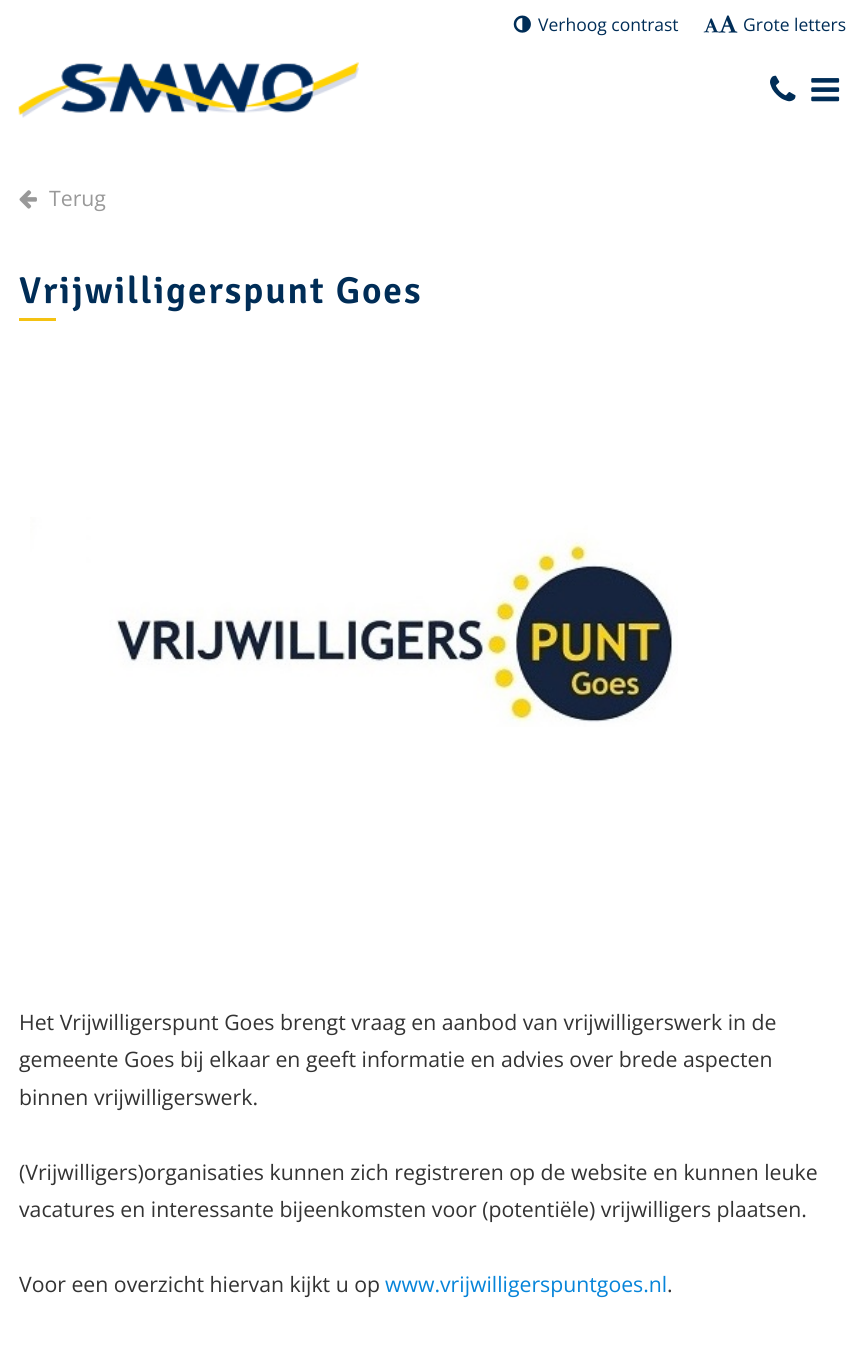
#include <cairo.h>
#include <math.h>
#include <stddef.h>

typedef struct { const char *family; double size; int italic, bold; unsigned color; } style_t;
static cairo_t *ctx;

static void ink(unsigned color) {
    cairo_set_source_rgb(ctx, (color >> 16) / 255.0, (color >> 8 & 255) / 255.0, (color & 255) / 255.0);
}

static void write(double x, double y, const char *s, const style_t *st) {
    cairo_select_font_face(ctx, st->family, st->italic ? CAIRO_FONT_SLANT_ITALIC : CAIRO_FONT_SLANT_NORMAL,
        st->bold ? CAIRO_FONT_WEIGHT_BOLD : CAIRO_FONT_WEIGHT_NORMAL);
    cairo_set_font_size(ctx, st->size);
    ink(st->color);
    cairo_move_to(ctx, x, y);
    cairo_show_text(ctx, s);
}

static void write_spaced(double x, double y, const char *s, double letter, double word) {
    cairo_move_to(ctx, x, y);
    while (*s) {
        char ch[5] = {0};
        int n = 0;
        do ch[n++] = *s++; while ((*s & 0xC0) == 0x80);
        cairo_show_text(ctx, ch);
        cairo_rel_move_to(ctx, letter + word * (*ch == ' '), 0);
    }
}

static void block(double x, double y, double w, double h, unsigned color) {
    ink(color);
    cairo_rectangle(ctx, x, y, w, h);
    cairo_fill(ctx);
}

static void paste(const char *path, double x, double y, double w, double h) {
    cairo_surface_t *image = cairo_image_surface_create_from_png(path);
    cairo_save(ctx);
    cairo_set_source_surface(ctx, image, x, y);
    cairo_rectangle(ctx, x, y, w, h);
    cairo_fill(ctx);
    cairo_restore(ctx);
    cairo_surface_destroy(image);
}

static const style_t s1 = {"Open Sans", 17.5, 0, 0, 0x002d57};
static const style_t s2 = {"Open Sans", 21.25, 0, 0, 0x999999};
static const style_t s3 = {"Open Sans", 21.25, 0, 0, 0x333333};
static const style_t s4 = {"Open Sans", 21.25, 0, 0, 0x0684d9};

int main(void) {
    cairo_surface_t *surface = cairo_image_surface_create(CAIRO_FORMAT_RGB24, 865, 1354);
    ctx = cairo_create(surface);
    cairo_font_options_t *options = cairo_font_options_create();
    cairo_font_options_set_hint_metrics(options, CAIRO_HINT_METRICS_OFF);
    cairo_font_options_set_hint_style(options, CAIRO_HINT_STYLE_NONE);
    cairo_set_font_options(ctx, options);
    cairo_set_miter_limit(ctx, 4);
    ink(0xffffff);
    cairo_paint(ctx);
    paste("pic1.png", 513, 15, 18, 18);
    write(538, 31, "Verhoog contrast", &s1);
    paste("pic2.png", 703, 18, 16, 15);
    paste("pic3.png", 718, 15, 20, 18);
    write(743, 31, "Grote letters", &s1);
    paste("pic4.png", 18, 62, 341, 56);
    paste("pic5.png", 770, 75, 26, 27);
    paste("pic6.png", 811, 78, 29, 24);
    paste("pic7.png", 19, 190, 18, 19);
    write(49, 206, "Terug", &s2);
    cairo_select_font_face(ctx, "Signika SemiBold", CAIRO_FONT_SLANT_NORMAL, CAIRO_FONT_WEIGHT_NORMAL);
    cairo_set_font_size(ctx, 37.5);
    ink(0x002d57);
    write_spaced(19, 303, "Vrijwilligerspunt Goes", 1.9, 0);
    block(19, 318, 37, 3, 0xf4c212);
    paste("pic8.png", 30, 517, 648, 210);
    write(19, 1030, "Het Vrijwilligerspunt Goes brengt vraag en aanbod van vrijwilligerswerk in de", &s3);
    write(19, 1067, "gemeente Goes bij elkaar en geeft informatie en advies over brede aspecten", &s3);
    write(19, 1105, "binnen vrijwilligerswerk.", &s3);
    write(19, 1180, "(Vrijwilligers)organisaties kunnen zich registreren op de website en kunnen leuke", &s3);
    write(19, 1217, "vacatures en interessante bijeenkomsten voor (potentiële) vrijwilligers plaatsen.", &s3);
    write(19, 1292, "Voor een overzicht hiervan kijkt u op", &s3);
    write(385, 1292, "www.vrijwilligerspuntgoes.nl", &s4);
    write(667, 1292, ".", &s3);
    cairo_surface_write_to_png(surface, "screenshot.png");
    cairo_font_options_destroy(options);
    cairo_destroy(ctx);
    cairo_surface_destroy(surface);
    return 0;
}
